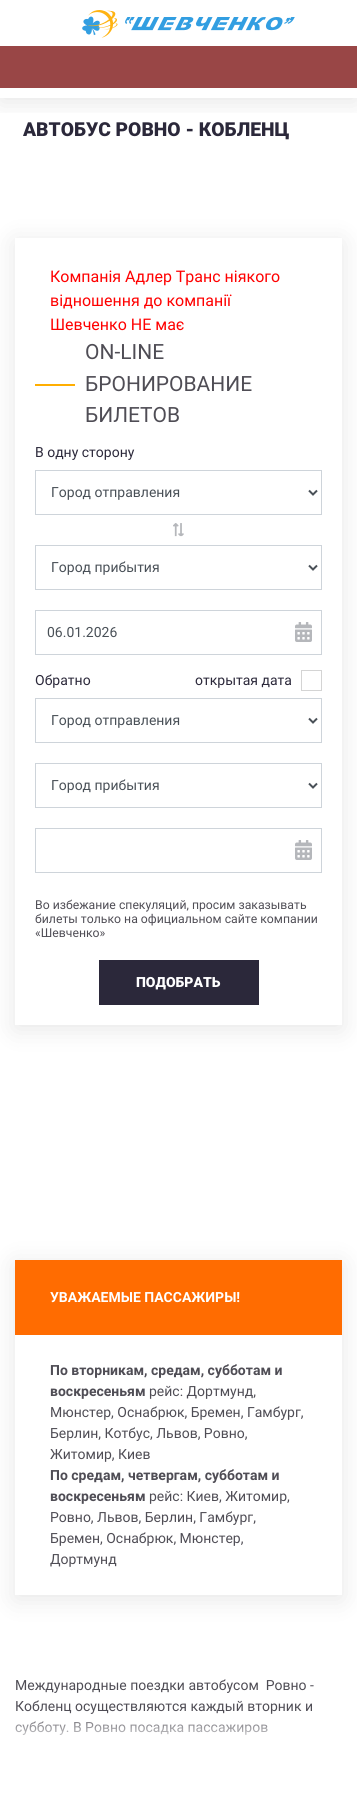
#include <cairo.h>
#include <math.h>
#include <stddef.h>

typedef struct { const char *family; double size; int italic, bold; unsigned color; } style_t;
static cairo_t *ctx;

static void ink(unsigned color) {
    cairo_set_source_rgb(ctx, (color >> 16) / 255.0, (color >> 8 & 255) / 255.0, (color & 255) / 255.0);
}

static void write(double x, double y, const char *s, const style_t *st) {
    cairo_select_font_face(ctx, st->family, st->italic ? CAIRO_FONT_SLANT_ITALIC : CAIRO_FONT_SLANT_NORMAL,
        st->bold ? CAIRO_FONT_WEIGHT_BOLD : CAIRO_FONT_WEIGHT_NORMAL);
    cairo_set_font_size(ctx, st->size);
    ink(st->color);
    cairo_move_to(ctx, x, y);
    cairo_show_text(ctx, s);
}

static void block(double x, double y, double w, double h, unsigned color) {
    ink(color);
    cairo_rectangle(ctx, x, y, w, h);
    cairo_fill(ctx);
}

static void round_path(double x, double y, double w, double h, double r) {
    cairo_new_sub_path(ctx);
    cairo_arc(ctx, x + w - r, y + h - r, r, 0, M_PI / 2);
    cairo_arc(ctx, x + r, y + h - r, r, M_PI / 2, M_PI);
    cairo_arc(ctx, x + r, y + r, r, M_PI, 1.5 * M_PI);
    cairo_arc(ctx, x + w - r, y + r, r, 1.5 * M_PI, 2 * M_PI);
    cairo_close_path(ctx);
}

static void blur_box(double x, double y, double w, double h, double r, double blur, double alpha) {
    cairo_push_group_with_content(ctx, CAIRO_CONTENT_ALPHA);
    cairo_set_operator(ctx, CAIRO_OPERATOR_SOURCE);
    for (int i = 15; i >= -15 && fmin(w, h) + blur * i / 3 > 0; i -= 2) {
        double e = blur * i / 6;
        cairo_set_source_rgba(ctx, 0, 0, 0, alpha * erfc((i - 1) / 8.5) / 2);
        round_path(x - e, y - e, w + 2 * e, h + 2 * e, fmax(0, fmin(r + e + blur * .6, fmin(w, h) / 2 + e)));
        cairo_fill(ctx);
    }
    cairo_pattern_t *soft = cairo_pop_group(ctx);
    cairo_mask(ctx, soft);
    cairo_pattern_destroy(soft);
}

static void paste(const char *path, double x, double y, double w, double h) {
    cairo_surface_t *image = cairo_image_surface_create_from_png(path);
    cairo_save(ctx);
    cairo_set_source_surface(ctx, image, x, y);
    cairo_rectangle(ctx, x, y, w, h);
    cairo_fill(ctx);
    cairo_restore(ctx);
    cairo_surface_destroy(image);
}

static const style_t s1 = {"Roboto Black", 19.25, 0, 0, 0x2b283a};
static const style_t s2 = {"Roboto", 16, 0, 0, 0xff0000};
static const style_t s3 = {"Roboto", 21, 0, 0, 0x4f4d55};
static const style_t s4 = {"Roboto", 14, 0, 0, 0x2b283a};
static const style_t s5 = {"Roboto", 14, 0, 0, 0x495057};
static const style_t s6 = {"Roboto", 12.25, 0, 0, 0x4f4d55};
static const style_t s7 = {"Roboto Black", 14, 0, 0, 0xffffff};
static const style_t s8 = {"Roboto", 14, 0, 1, 0xffffff};
static const style_t s9 = {"Roboto", 14, 0, 1, 0x4f4d55};
static const style_t s10 = {"Roboto", 14, 0, 0, 0x4f4d55};

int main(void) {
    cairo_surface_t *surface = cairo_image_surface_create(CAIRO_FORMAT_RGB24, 357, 1808);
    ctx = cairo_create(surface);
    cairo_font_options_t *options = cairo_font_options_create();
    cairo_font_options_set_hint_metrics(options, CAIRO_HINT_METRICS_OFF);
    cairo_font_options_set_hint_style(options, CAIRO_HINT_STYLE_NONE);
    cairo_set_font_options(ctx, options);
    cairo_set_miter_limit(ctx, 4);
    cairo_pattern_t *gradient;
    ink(0xffffff);
    cairo_paint(ctx);
    cairo_save(ctx);
    cairo_rectangle(ctx, 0, 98, 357, 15);
    cairo_clip(ctx);
    ink(0x000000);
    blur_box(0, 4, 357, 98, 0, 12.5, 0.1);
    cairo_restore(ctx);
    paste("pic1.png", 82, 10, 213, 28);
    block(0, 46, 357, 42, 0x994646);
    write(23, 136, "АВТОБУС РОВНО - КОБЛЕНЦ", &s1);
    cairo_save(ctx);
    cairo_set_fill_rule(ctx, CAIRO_FILL_RULE_EVEN_ODD);
    cairo_new_path(ctx);
    cairo_move_to(ctx, 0, 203);
    cairo_line_to(ctx, 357, 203);
    cairo_line_to(ctx, 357, 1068);
    cairo_line_to(ctx, 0, 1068);
    cairo_close_path(ctx);
    cairo_move_to(ctx, 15, 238);
    cairo_line_to(ctx, 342, 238);
    cairo_line_to(ctx, 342, 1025);
    cairo_line_to(ctx, 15, 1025);
    cairo_close_path(ctx);
    cairo_clip(ctx);
    ink(0x000000);
    blur_box(15, 242, 327, 787, 0, 12.5, 0.1);
    cairo_restore(ctx);
    write(50, 282, "Компанія Адлер Транс ніякого", &s2);
    write(50, 306, "відношення до компанії", &s2);
    write(50, 330, "Шевченко НЕ має", &s2);
    write(85, 359, "ON-LINE", &s3);
    block(35, 384, 40, 2, 0xffae01);
    write(85, 391, "БРОНИРОВАНИЕ", &s3);
    write(85, 422, "БИЛЕТОВ", &s3);
    write(35, 457, "В одну сторону", &s4);
    cairo_rectangle(ctx, 35.5, 470.5, 286, 44);
    ink(0xced4da);
    cairo_set_line_width(ctx, 1);
    cairo_stroke(ctx);
    cairo_new_path(ctx);
    cairo_move_to(ctx, 309, 490.5);
    cairo_line_to(ctx, 313, 494.5);
    cairo_line_to(ctx, 317, 490.5);
    ink(0x495057);
    cairo_set_line_width(ctx, 2);
    cairo_stroke(ctx);
    write(51, 497, "Город отправления", &s5);
    paste("pic2.png", 173, 523, 11, 14);
    cairo_rectangle(ctx, 35.5, 545.5, 286, 44);
    ink(0xced4da);
    cairo_set_line_width(ctx, 1);
    cairo_stroke(ctx);
    cairo_new_path(ctx);
    cairo_move_to(ctx, 309, 565.5);
    cairo_line_to(ctx, 313, 569.5);
    cairo_line_to(ctx, 317, 565.5);
    ink(0x495057);
    cairo_set_line_width(ctx, 2);
    cairo_stroke(ctx);
    write(51, 572, "Город прибытия", &s5);
    cairo_rectangle(ctx, 35.5, 610.5, 286, 44);
    ink(0xced4da);
    cairo_set_line_width(ctx, 1);
    cairo_stroke(ctx);
    write(47, 637, "06.01.2026", &s5);
    paste("pic3.png", 295, 622, 17, 20);
    write(35, 685, "Обратно", &s4);
    write(195, 685, "открытая дата", &s4);
    cairo_rectangle(ctx, 301.5, 670.5, 20, 20);
    ink(0xd4d4d4);
    cairo_stroke(ctx);
    cairo_rectangle(ctx, 35.5, 698.5, 286, 44);
    ink(0xced4da);
    cairo_stroke(ctx);
    cairo_new_path(ctx);
    cairo_move_to(ctx, 309, 718.5);
    cairo_line_to(ctx, 313, 722.5);
    cairo_line_to(ctx, 317, 718.5);
    ink(0x495057);
    cairo_set_line_width(ctx, 2);
    cairo_stroke(ctx);
    write(51, 725, "Город отправления", &s5);
    cairo_rectangle(ctx, 35.5, 763.5, 286, 44);
    ink(0xced4da);
    cairo_set_line_width(ctx, 1);
    cairo_stroke(ctx);
    cairo_new_path(ctx);
    cairo_move_to(ctx, 309, 783.5);
    cairo_line_to(ctx, 313, 787.5);
    cairo_line_to(ctx, 317, 783.5);
    ink(0x495057);
    cairo_set_line_width(ctx, 2);
    cairo_stroke(ctx);
    write(51, 790, "Город прибытия", &s5);
    cairo_rectangle(ctx, 35.5, 828.5, 286, 44);
    ink(0xced4da);
    cairo_set_line_width(ctx, 1);
    cairo_stroke(ctx);
    paste("pic3.png", 295, 840, 17, 20);
    write(35, 909, "Во избежание спекуляций, просим заказывать", &s6);
    write(35, 923, "билеты только на официальном сайте компании", &s6);
    write(35, 937, "«Шевченко»", &s6);
    block(99, 960, 160, 45, 0x2b283a);
    write(136, 987, "ПОДОБРАТЬ", &s7);
    cairo_save(ctx);
    cairo_set_fill_rule(ctx, CAIRO_FILL_RULE_EVEN_ODD);
    cairo_new_path(ctx);
    cairo_move_to(ctx, 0, 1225);
    cairo_line_to(ctx, 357, 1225);
    cairo_line_to(ctx, 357, 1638);
    cairo_line_to(ctx, 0, 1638);
    cairo_close_path(ctx);
    cairo_move_to(ctx, 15, 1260);
    cairo_line_to(ctx, 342, 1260);
    cairo_line_to(ctx, 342, 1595);
    cairo_line_to(ctx, 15, 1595);
    cairo_close_path(ctx);
    cairo_clip(ctx);
    ink(0x000000);
    blur_box(15, 1264, 327, 335, 0, 12.5, 0.1);
    cairo_restore(ctx);
    block(15, 1260, 327, 75, 0xff6c01);
    write(50, 1302, "УВАЖАЕМЫЕ ПАССАЖИРЫ!", &s8);
    write(50, 1375, "По вторникам, средам, субботам и", &s9);
    write(50, 1396, "воскресеньям", &s9);
    write(149, 1396, "рейс: Дортмунд,", &s10);
    write(50, 1417, "Мюнстер, Оснабрюк, Бремен, Гамбург,", &s10);
    write(50, 1438, "Берлин, Котбус, Львов, Ровно,", &s10);
    write(50, 1459, "Житомир, Киев", &s10);
    write(50, 1480, "По средам, четвергам, субботам и", &s9);
    write(50, 1501, "воскресеньям", &s9);
    write(149, 1501, "рейс: Киев, Житомир,", &s10);
    write(50, 1522, "Ровно, Львов, Берлин, Гамбург,", &s10);
    write(50, 1543, "Бремен, Оснабрюк, Мюнстер,", &s10);
    write(50, 1564, "Дортмунд", &s10);
    write(15, 1690, "Международные поездки автобусом  Ровно -", &s10);
    write(15, 1711, "Кобленц осуществляются каждый вторник и", &s10);
    write(15, 1732, "субботу. В Ровно посадка пассажиров", &s10);
    gradient = cairo_pattern_create_linear(179, 1675, 179, 1748);
    cairo_pattern_add_color_stop_rgba(gradient, 0.5, 1, 1, 1, 0);
    cairo_pattern_add_color_stop_rgba(gradient, 1, 1, 1, 1, 1);
    cairo_set_source(ctx, gradient);
    cairo_pattern_destroy(gradient);
    cairo_rectangle(ctx, 15, 1712, 257, 23);
    cairo_fill(ctx);
    cairo_surface_write_to_png(surface, "screenshot.png");
    cairo_font_options_destroy(options);
    cairo_destroy(ctx);
    cairo_surface_destroy(surface);
    return 0;
}
